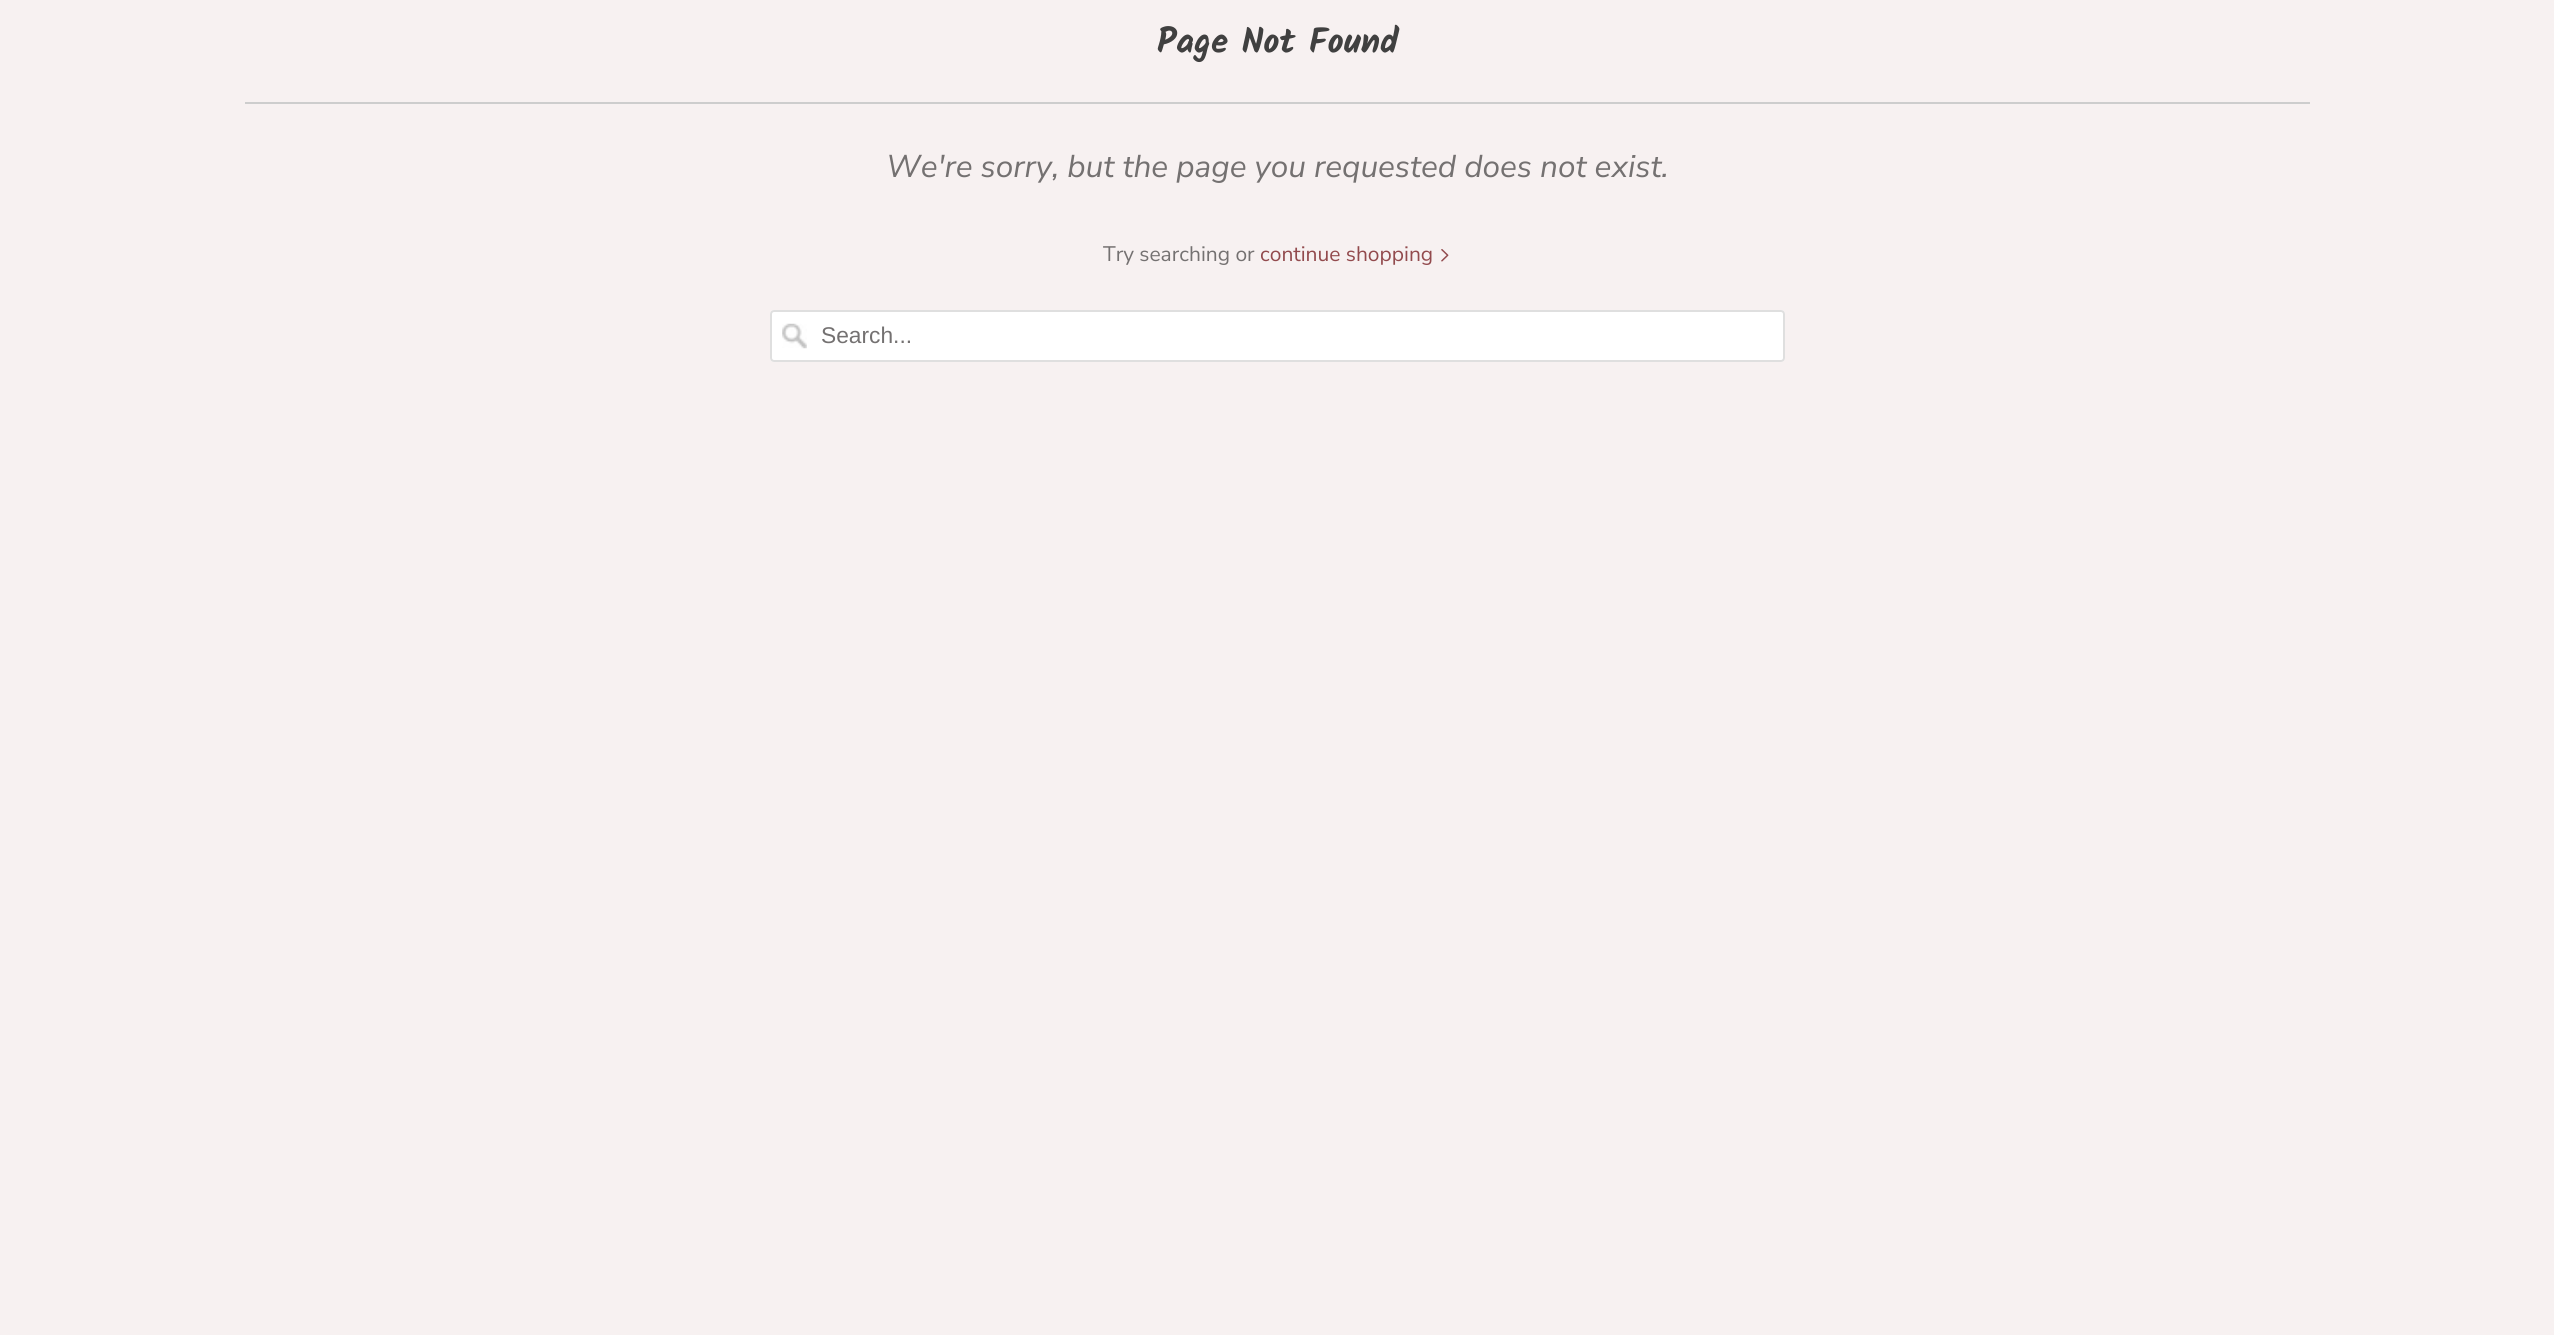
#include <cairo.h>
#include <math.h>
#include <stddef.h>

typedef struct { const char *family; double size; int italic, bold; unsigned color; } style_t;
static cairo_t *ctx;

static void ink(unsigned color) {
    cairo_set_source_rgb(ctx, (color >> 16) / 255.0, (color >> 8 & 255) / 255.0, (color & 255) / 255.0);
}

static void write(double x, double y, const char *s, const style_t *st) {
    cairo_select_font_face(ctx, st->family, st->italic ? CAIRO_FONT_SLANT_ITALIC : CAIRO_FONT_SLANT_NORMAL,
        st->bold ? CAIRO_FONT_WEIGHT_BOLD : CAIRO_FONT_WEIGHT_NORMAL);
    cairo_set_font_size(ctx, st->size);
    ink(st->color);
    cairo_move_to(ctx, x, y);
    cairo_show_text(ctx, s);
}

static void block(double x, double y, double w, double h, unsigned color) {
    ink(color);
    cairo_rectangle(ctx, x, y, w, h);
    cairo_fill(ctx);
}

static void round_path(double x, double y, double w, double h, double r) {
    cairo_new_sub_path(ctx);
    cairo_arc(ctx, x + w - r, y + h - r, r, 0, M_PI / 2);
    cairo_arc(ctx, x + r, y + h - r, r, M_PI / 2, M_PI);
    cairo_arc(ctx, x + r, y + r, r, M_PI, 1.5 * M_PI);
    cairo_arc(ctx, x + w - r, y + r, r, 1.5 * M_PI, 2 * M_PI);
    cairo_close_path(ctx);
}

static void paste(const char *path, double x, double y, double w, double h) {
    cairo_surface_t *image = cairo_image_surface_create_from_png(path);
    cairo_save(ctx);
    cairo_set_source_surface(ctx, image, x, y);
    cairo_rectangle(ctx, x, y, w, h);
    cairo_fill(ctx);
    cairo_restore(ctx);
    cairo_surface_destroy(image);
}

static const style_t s1 = {"Kalam", 35, 0, 1, 0x404040};
static const style_t s2 = {"Nunito Sans", 31.5, 1, 0, 0x747171};
static const style_t s3 = {"Nunito Sans", 21, 0, 0, 0x747171};
static const style_t s4 = {"Nunito Sans", 21, 0, 0, 0x924a4d};
static const style_t s5 = {"Liberation Sans", 22.75, 0, 0, 0x747171};

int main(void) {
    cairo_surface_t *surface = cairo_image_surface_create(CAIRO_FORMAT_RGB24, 2554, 1335);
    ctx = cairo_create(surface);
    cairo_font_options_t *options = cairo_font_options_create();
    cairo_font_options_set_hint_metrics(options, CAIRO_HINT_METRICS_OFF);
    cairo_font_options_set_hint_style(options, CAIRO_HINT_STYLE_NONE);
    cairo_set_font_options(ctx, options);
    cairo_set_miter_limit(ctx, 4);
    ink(0xf7f1f1);
    cairo_paint(ctx);
    block(245, 102, 2065, 2, 0xcdcdcd);
    write(1157, 53, "Page Not Found", &s1);
    write(886, 177, "We're sorry, but the page you requested does not exist.", &s2);
    write(1103, 261, "Try searching or", &s3);
    write(1260, 261, "continue shopping", &s4);
    paste("pic1.png", 1441, 249, 8, 13);
    ink(0xffffff);
    round_path(770, 310, 1015, 52, 4);
    cairo_fill(ctx);
    paste("pic2.png", 782, 323, 25, 26);
    round_path(771, 311, 1013, 50, 3);
    ink(0xdfdfdf);
    cairo_stroke(ctx);
    write(821, 343, "Search...", &s5);
    cairo_surface_write_to_png(surface, "screenshot.png");
    cairo_font_options_destroy(options);
    cairo_destroy(ctx);
    cairo_surface_destroy(surface);
    return 0;
}
